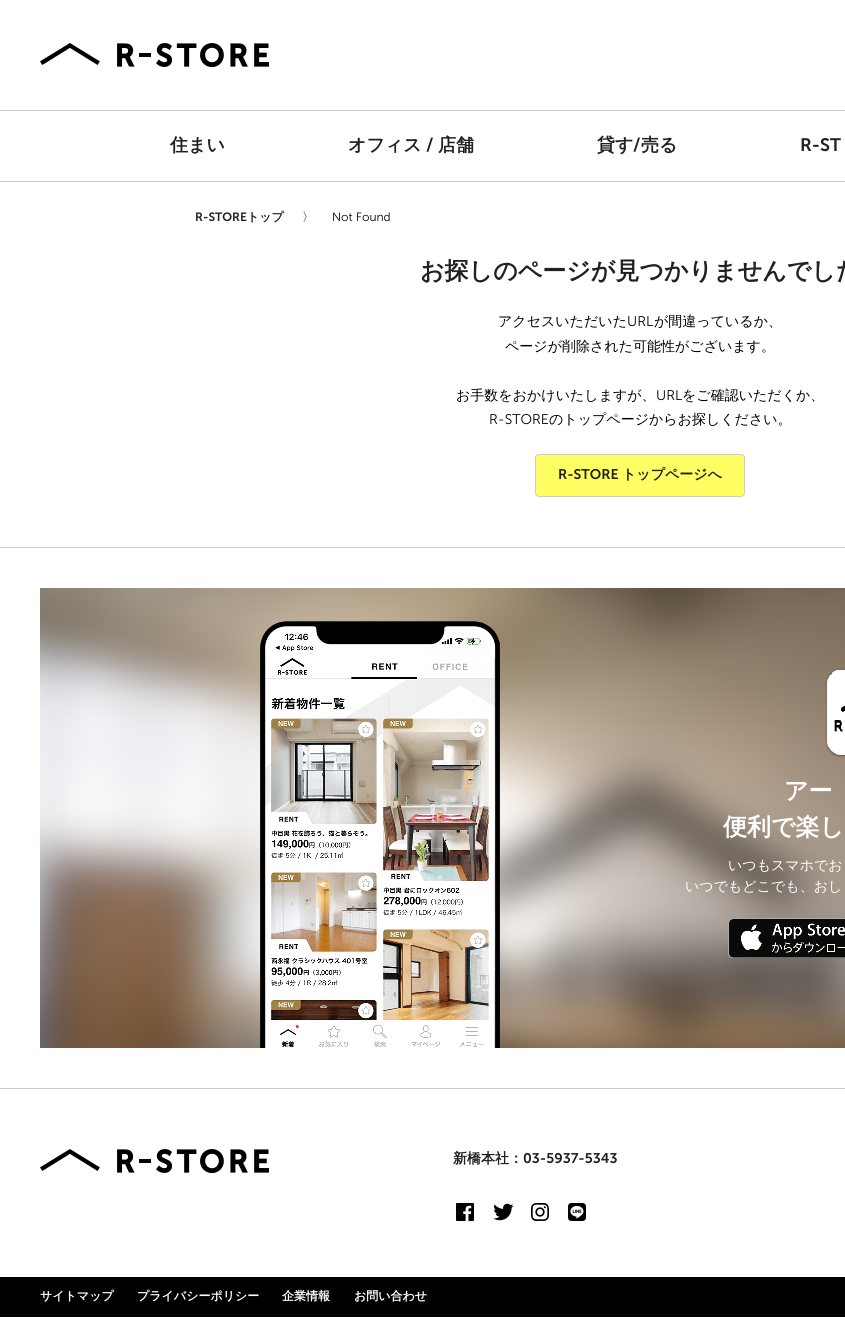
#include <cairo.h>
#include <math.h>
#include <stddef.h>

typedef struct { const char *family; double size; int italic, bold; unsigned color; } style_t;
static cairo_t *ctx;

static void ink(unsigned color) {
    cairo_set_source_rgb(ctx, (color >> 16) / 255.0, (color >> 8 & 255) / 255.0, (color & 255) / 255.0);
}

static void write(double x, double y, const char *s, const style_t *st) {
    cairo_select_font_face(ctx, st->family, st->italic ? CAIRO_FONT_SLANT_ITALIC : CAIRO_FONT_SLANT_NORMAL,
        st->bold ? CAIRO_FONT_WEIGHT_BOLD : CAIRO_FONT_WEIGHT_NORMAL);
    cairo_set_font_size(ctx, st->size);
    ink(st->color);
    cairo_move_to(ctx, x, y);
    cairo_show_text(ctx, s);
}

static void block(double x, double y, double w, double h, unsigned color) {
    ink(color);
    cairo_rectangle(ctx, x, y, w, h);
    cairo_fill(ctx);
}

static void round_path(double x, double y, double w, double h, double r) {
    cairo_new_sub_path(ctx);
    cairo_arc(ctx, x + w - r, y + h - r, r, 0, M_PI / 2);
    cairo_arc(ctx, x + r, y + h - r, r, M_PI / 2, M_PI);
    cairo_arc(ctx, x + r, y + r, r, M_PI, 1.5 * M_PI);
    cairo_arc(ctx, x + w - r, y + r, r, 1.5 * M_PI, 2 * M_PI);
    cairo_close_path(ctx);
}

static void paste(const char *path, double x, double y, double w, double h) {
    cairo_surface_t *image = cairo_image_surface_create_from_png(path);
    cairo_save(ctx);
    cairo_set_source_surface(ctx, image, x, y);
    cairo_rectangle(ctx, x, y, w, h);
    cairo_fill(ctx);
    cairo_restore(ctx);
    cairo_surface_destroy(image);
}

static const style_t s1 = {"WenQuanYi Zen Hei", 18, 0, 1, 0x212121};
static const style_t s2 = {"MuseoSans", 18, 0, 0, 0x212121};
static const style_t s3 = {"MuseoSans", 12, 0, 0, 0x212121};
static const style_t s4 = {"WenQuanYi Zen Hei", 12, 0, 1, 0x212121};
static const style_t s5 = {"WenQuanYi Zen Hei Medium", 12, 0, 0, 0x000000};
static const style_t s6 = {"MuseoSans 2", 12, 0, 0, 0x000000};
static const style_t s7 = {"WenQuanYi Zen Hei", 24, 0, 1, 0x212121};
static const style_t s8 = {"WenQuanYi Zen Hei Medium", 14, 0, 0, 0x000000};
static const style_t s9 = {"MuseoSans 2", 14, 0, 0, 0x000000};
static const style_t s10 = {"MuseoSans", 14, 0, 0, 0x21210d};
static const style_t s11 = {"WenQuanYi Zen Hei", 14, 0, 1, 0x21210d};
static const style_t s12 = {"WenQuanYi Zen Hei", 24, 0, 1, 0xffffff};
static const style_t s13 = {"WenQuanYi Zen Hei Medium", 14, 0, 0, 0xffffff};
static const style_t s14 = {"WenQuanYi Zen Hei", 14, 0, 1, 0x212121};
static const style_t s15 = {"MuseoSans", 14, 0, 0, 0x212121};
static const style_t s16 = {"WenQuanYi Zen Hei", 12, 0, 1, 0xffffff};

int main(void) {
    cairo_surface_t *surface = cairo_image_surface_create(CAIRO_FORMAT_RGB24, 845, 1333);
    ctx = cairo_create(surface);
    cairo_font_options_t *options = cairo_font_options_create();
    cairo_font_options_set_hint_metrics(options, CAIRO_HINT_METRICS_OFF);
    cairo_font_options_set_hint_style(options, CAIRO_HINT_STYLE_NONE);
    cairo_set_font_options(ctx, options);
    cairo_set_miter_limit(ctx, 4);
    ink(0xffffff);
    cairo_paint(ctx);
    block(0, 110, 845, 1, 0xcccccc);
    paste("pic1.png", 40, 43, 229, 24);
    block(0, 181, 845, 1, 0xcccccc);
    write(170, 151, "住まい", &s1);
    write(348, 151, "オフィス", &s1);
    write(426, 151, "/", &s2);
    write(438, 151, "店舗", &s1);
    write(597, 151, "貸す", &s1);
    write(633, 151, "/", &s2);
    write(641, 151, "売る", &s1);
    write(800, 151, "R-ST", &s2);
    write(195, 221, "R-STORE", &s3);
    write(247, 221, "トップ", &s4);
    write(302, 221, "〉", &s5);
    write(332, 221, "Not Found", &s6);
    write(420, 279, "お探しのページが見つかりませんでした", &s7);
    write(498, 326, "アクセスいただいた", &s8);
    write(627, 326, "URL", &s9);
    write(654, 326, "が間違っているか、", &s8);
    write(505, 351, "ページが削除された可能性がございます。", &s8);
    write(456, 400, "お手数をおかけいたしますが、", &s8);
    write(656, 400, "URL", &s9);
    write(682, 400, "をご確認いただくか、", &s8);
    write(489, 424, "R-STORE", &s9);
    write(549, 424, "のトップページからお探しください。", &s8);
    ink(0xffff64);
    round_path(535.5, 454.5, 209, 42, 3.5);
    cairo_fill_preserve(ctx);
    ink(0xcccccc);
    cairo_set_line_width(ctx, 1);
    cairo_stroke(ctx);
    write(558, 479, "R-STORE", &s10);
    write(622, 479, "トップページへ", &s11);
    block(0, 547, 845, 1, 0xcccccc);
    paste("pic2.png", 40, 588, 805, 460);
    paste("pic3.png", 260, 621, 240, 427);
    paste("pic4.png", 825, 668, 20, 90);
    write(784, 799, "アー", &s12);
    write(723, 835, "便利で楽し", &s12);
    write(728, 870, "いつもスマホでお", &s13);
    write(685, 891, "いつでもどこでも、おし", &s13);
    paste("pic5.png", 728, 918, 117, 40);
    block(0, 1088, 845, 1, 0xcccccc);
    paste("pic1.png", 40, 1149, 229, 24);
    write(453, 1163, "新橋本社：", &s14);
    write(523, 1163, "03-5937-5343", &s15);
    paste("pic6.png", 456, 1203, 18, 18);
    paste("pic7.png", 493, 1203, 21, 18);
    paste("pic8.png", 531, 1203, 18, 18);
    paste("pic9.png", 568, 1203, 18, 18);
    block(0, 1277, 845, 40, 0x000000);
    write(40, 1300, "サイトマップ", &s16);
    write(137, 1300, "プライバシーポリシー", &s16);
    write(282, 1300, "企業情報", &s16);
    write(354, 1300, "お問い合わせ", &s16);
    cairo_surface_write_to_png(surface, "screenshot.png");
    cairo_font_options_destroy(options);
    cairo_destroy(ctx);
    cairo_surface_destroy(surface);
    return 0;
}
